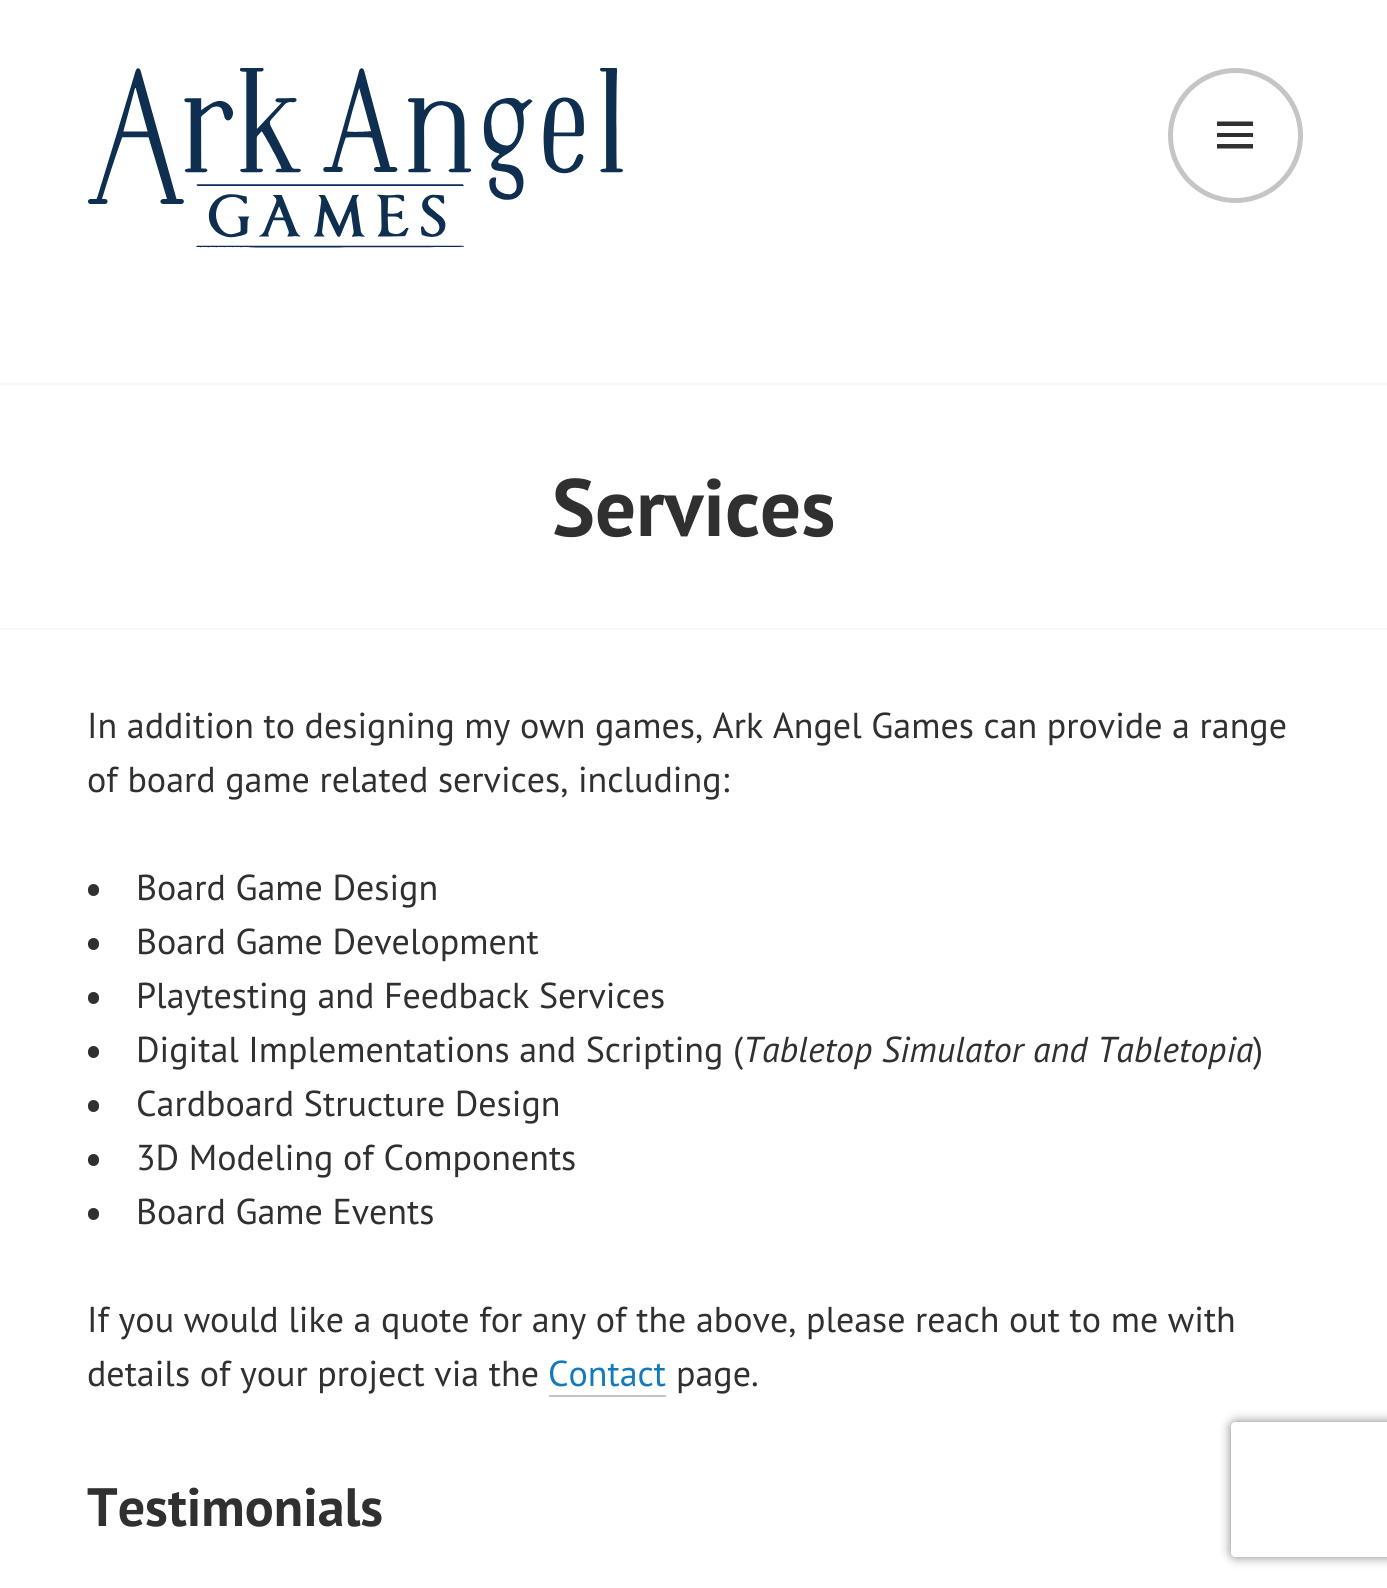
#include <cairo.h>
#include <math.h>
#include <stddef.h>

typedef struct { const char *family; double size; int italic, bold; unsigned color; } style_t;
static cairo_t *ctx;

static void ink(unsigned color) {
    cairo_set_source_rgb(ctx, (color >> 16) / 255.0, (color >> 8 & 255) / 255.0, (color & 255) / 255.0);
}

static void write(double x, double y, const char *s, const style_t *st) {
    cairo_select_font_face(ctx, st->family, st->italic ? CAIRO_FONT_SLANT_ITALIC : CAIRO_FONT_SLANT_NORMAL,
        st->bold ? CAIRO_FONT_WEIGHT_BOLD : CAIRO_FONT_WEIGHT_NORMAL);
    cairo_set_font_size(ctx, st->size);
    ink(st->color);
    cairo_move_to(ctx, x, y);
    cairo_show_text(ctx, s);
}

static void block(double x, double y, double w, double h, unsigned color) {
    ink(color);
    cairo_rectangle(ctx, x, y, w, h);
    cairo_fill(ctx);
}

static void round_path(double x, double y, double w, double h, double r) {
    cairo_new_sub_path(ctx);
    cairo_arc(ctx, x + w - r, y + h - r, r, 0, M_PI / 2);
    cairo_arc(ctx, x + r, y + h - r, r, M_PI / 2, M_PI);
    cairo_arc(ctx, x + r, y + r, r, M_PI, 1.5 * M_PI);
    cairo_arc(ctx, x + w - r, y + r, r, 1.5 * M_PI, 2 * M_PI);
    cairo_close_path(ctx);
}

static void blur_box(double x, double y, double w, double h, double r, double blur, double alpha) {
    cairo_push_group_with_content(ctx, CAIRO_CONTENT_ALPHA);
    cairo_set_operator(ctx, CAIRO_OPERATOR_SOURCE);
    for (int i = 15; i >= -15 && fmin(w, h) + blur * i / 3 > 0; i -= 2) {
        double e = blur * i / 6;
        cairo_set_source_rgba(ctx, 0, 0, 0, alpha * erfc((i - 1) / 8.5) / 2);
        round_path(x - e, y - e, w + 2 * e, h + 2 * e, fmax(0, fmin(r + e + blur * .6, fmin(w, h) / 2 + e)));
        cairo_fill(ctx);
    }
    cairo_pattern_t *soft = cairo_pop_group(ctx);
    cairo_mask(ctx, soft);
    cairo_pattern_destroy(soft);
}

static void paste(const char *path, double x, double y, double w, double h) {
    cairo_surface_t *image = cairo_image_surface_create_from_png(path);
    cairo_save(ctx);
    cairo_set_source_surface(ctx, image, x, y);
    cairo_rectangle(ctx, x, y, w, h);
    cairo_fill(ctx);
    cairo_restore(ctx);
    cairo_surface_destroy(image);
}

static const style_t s1 = {"PT Sans", 81, 0, 1, 0x303030};
static const style_t s2 = {"PT Sans", 36, 0, 0, 0x303030};
static const style_t s3 = {"PT Sans", 36, 1, 0, 0x303030};
static const style_t s4 = {"PT Sans", 36, 0, 0, 0x1279be};
static const style_t s5 = {"PT Sans", 54, 0, 1, 0x303030};

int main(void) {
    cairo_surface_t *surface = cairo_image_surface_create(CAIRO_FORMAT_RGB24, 1387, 1588);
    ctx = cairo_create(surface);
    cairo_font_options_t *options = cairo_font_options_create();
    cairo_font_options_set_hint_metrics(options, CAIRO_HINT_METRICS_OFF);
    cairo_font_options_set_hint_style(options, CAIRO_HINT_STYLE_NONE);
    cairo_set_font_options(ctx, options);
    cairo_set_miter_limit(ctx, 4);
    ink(0xffffff);
    cairo_paint(ctx);
    block(0, 383, 1387, 2, 0xf8f8f8);
    paste("pic1.png", 88, 68, 535, 180);
    cairo_arc(ctx, 1235.5, 135.5, 65, 0, 2 * M_PI);
    ink(0xc5c5c5);
    cairo_set_line_width(ctx, 5);
    cairo_stroke(ctx);
    ink(0x303030);
    cairo_new_path(ctx);
    cairo_move_to(ctx, 1217, 121.5);
    cairo_line_to(ctx, 1253, 121.5);
    cairo_line_to(ctx, 1253, 126);
    cairo_line_to(ctx, 1217, 126);
    cairo_close_path(ctx);
    cairo_move_to(ctx, 1217, 133);
    cairo_line_to(ctx, 1253, 133);
    cairo_line_to(ctx, 1253, 137);
    cairo_line_to(ctx, 1217, 137);
    cairo_close_path(ctx);
    cairo_move_to(ctx, 1217, 144);
    cairo_line_to(ctx, 1253, 144);
    cairo_line_to(ctx, 1253, 148.5);
    cairo_line_to(ctx, 1217, 148.5);
    cairo_close_path(ctx);
    cairo_fill(ctx);
    block(0, 628, 1387, 2, 0xf8f8f8);
    write(552, 536, "Services", &s1);
    write(87, 738, "In addition to designing my own games, Ark Angel Games can provide a range", &s2);
    write(87, 792, "of board game related services, including:", &s2);
    round_path(88, 884, 11, 12, 5.5);
    cairo_fill(ctx);
    write(136, 900, "Board Game Design", &s2);
    round_path(88, 938, 11, 12, 5.5);
    cairo_fill(ctx);
    write(136, 954, "Board Game Development", &s2);
    round_path(88, 992, 11, 12, 5.5);
    cairo_fill(ctx);
    write(136, 1008, "Playtesting and Feedback Services", &s2);
    round_path(88, 1046, 11, 12, 5.5);
    cairo_fill(ctx);
    write(136, 1062, "Digital Implementations and Scripting (", &s2);
    write(743, 1062, "Tabletop Simulator and Tabletopia", &s3);
    write(1253, 1062, ")", &s2);
    round_path(88, 1100, 11, 12, 5.5);
    cairo_fill(ctx);
    write(136, 1116, "Cardboard Structure Design", &s2);
    round_path(88, 1154, 11, 12, 5.5);
    cairo_fill(ctx);
    write(136, 1170, "3D Modeling of Components", &s2);
    round_path(88, 1208, 11, 12, 5.5);
    cairo_fill(ctx);
    write(136, 1224, "Board Game Events", &s2);
    write(87, 1332, "If you would like a quote for any of the above, please reach out to me with", &s2);
    write(87, 1386, "details of your project via the", &s2);
    write(548, 1386, "Contact", &s4);
    block(549, 1395, 117, 2, 0xc5c5c5);
    write(676, 1386, "page.", &s2);
    write(87, 1526, "Testimonials", &s5);
    cairo_save(ctx);
    cairo_set_fill_rule(ctx, CAIRO_FILL_RULE_EVEN_ODD);
    cairo_new_path(ctx);
    cairo_move_to(ctx, 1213, 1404);
    cairo_line_to(ctx, 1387, 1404);
    cairo_line_to(ctx, 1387, 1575);
    cairo_line_to(ctx, 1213, 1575);
    cairo_close_path(ctx);
    cairo_move_to(ctx, 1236, 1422);
    cairo_line_to(ctx, 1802, 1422);
    cairo_curve_to(ctx, 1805, 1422, 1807, 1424, 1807, 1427);
    cairo_line_to(ctx, 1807, 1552);
    cairo_curve_to(ctx, 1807, 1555, 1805, 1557, 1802, 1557);
    cairo_line_to(ctx, 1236, 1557);
    cairo_curve_to(ctx, 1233, 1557, 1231, 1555, 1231, 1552);
    cairo_line_to(ctx, 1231, 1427);
    cairo_curve_to(ctx, 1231, 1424, 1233, 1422, 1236, 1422);
    cairo_close_path(ctx);
    cairo_clip(ctx);
    ink(0x808080);
    blur_box(1231, 1422, 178, 135, 5, 5.5, 1);
    cairo_restore(ctx);
    cairo_surface_write_to_png(surface, "screenshot.png");
    cairo_font_options_destroy(options);
    cairo_destroy(ctx);
    cairo_surface_destroy(surface);
    return 0;
}
